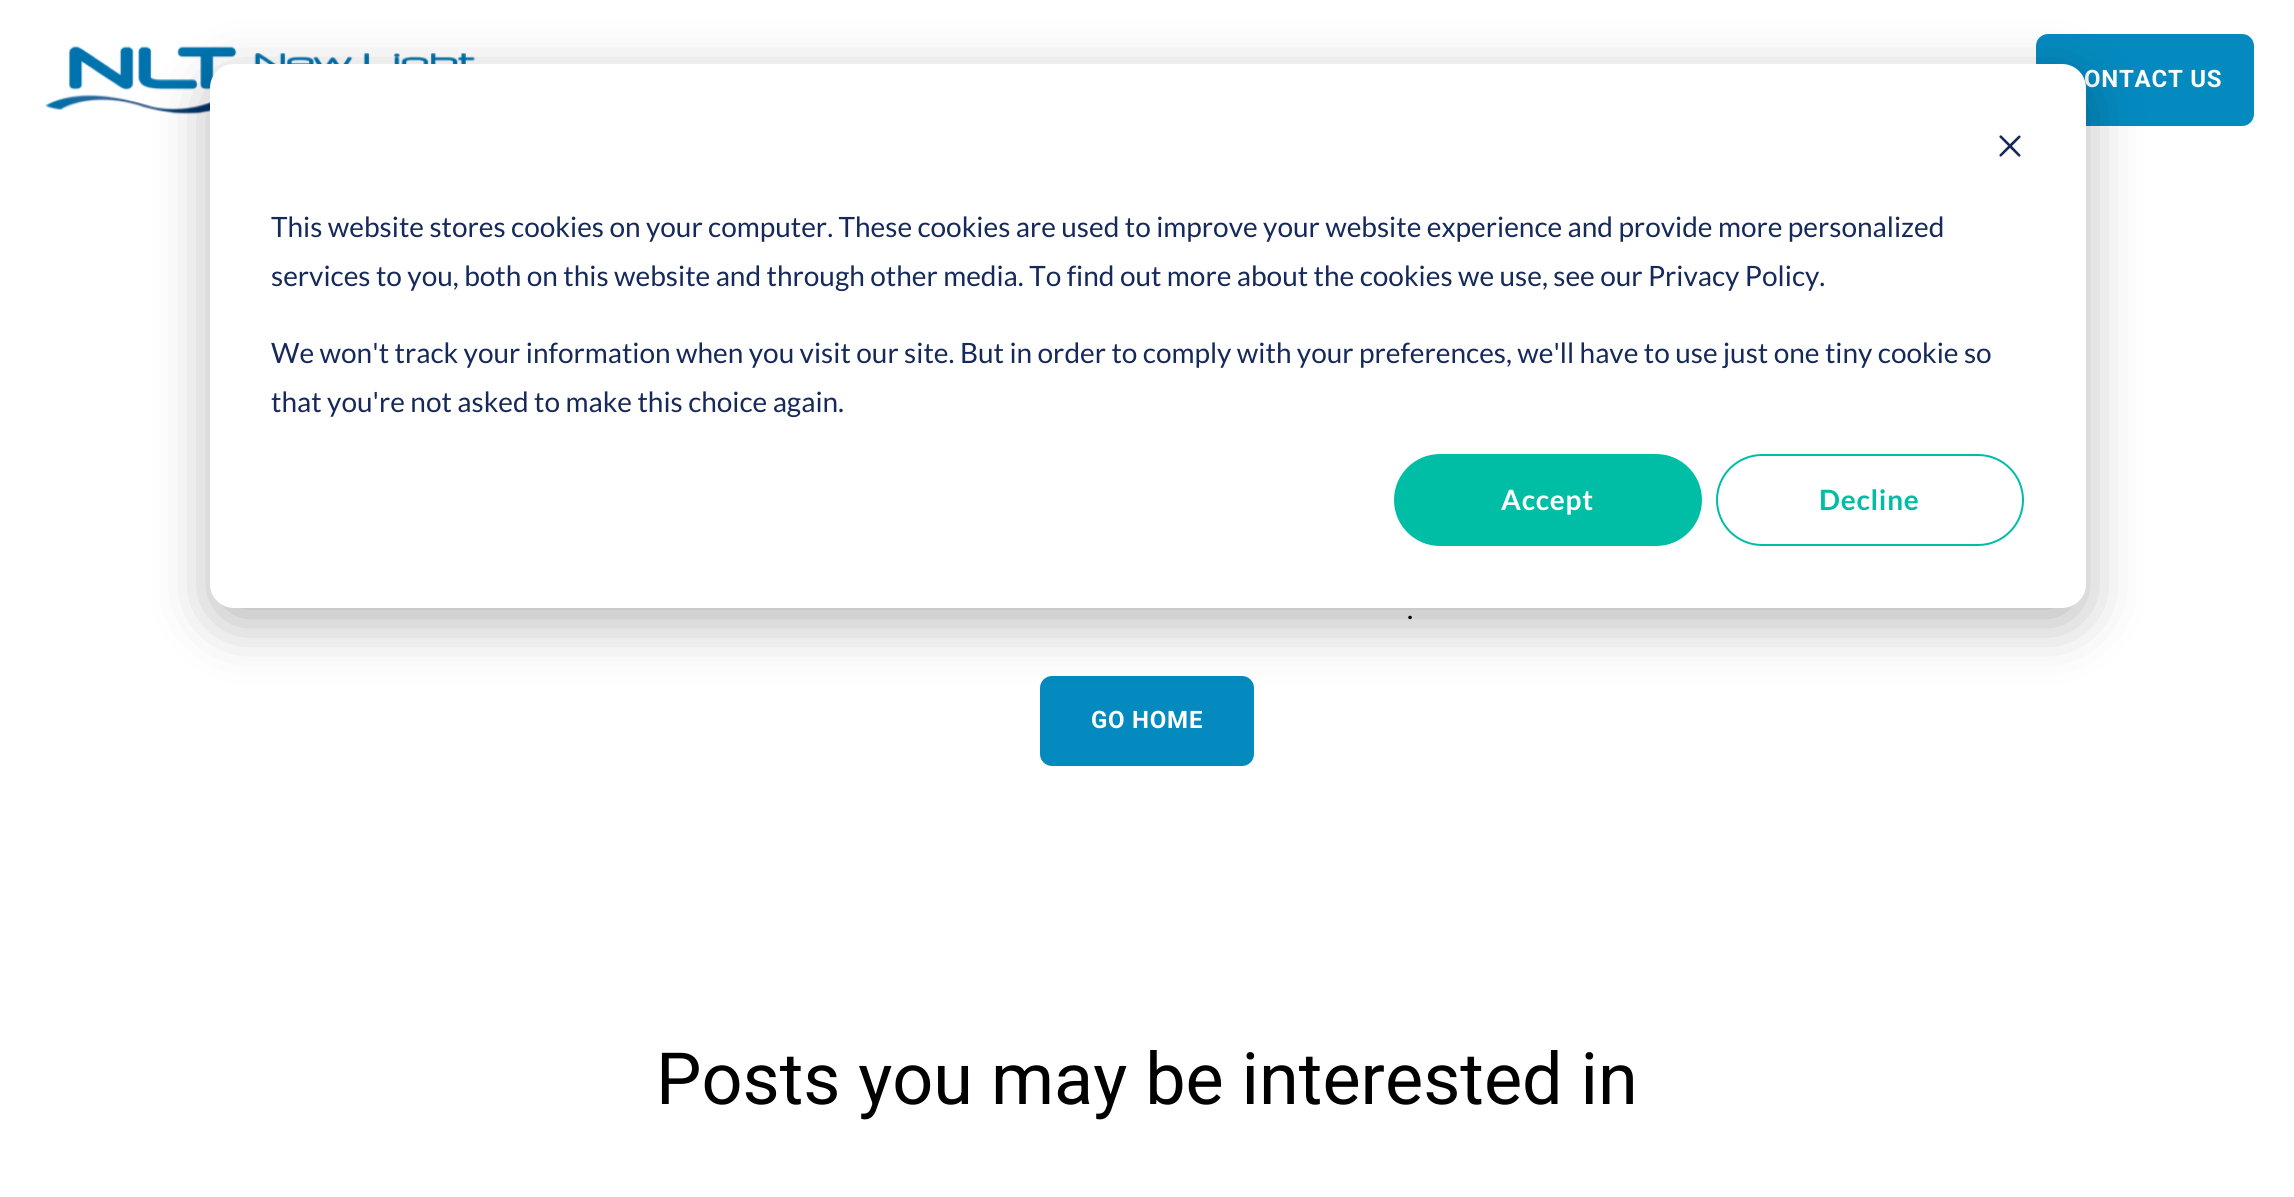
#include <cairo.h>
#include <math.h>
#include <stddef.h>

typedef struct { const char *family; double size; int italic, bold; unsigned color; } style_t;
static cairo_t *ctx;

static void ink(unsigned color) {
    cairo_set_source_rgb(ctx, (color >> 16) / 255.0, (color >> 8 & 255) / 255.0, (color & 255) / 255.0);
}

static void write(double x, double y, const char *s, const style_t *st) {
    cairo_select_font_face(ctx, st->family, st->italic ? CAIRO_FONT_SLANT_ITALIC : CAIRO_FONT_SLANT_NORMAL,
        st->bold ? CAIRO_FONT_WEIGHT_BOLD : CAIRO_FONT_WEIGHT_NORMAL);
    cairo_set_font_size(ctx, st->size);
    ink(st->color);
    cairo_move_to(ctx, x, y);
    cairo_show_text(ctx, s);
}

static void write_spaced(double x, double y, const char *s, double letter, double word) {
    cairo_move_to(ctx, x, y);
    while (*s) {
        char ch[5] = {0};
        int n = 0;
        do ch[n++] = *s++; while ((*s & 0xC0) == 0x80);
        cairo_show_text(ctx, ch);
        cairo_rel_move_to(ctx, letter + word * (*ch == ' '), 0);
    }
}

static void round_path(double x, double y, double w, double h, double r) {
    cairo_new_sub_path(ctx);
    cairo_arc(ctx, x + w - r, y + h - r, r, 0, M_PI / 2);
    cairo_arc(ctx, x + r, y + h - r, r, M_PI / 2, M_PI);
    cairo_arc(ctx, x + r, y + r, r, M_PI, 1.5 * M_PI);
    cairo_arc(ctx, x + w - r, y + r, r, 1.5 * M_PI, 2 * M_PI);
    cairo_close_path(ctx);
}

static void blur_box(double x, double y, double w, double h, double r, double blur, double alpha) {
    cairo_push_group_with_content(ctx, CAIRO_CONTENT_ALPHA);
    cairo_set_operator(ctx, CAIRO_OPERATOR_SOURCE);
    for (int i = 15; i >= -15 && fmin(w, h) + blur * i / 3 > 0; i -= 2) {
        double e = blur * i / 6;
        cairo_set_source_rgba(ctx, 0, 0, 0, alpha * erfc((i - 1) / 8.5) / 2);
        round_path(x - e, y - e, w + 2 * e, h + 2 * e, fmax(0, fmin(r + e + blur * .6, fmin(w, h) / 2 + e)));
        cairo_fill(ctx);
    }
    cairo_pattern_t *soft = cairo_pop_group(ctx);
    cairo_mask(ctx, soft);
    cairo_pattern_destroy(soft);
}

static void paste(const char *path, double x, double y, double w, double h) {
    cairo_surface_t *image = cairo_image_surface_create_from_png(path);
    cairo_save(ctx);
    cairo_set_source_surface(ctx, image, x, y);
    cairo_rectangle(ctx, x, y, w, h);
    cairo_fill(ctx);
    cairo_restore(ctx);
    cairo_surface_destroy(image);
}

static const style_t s1 = {"Roboto", 32, 0, 0, 0x000000};
static const style_t s2 = {"Roboto", 72, 0, 0, 0x000000};
static const style_t s3 = {"Lato", 28, 0, 0, 0x15295a};

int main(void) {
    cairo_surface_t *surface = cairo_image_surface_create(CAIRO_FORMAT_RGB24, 2294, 1197);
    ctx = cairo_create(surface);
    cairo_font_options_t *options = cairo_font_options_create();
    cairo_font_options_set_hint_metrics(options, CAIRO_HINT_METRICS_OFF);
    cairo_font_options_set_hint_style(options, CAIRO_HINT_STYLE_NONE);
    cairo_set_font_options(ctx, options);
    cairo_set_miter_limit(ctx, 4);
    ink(0xffffff);
    cairo_paint(ctx);
    paste("pic1.png", 45, 46, 430, 69);
    ink(0x048abf);
    round_path(2037, 35, 216, 90, 11);
    cairo_fill_preserve(ctx);
    cairo_stroke(ctx);
    cairo_select_font_face(ctx, "Roboto", CAIRO_FONT_SLANT_NORMAL, CAIRO_FONT_WEIGHT_BOLD);
    cairo_set_font_size(ctx, 24);
    ink(0xffffff);
    write_spaced(2084, 87, "ONTACT US", 0.75, 0);
    write(1406, 619, ".", &s1);
    ink(0x048abf);
    round_path(1041, 677, 212, 88, 11);
    cairo_fill_preserve(ctx);
    cairo_stroke(ctx);
    cairo_select_font_face(ctx, "Roboto", CAIRO_FONT_SLANT_NORMAL, CAIRO_FONT_WEIGHT_BOLD);
    cairo_set_font_size(ctx, 24);
    ink(0xffffff);
    write_spaced(1091, 728, "GO HOME", 0.75, 0);
    write(656, 1104, "Posts you may be interested in", &s2);
    ink(0x000000);
    blur_box(210, 80, 1876, 544, 24, 28, 0.28);
    ink(0xffffff);
    round_path(210, 64, 1876, 544, 24);
    cairo_fill(ctx);
    paste("pic2.png", 1999, 135, 22, 22);
    write(271, 237, "This website stores cookies on your computer. These cookies are used to improve your website experience and provide more personalized", &s3);
    write(271, 286, "services to you, both on this website and through other media. To find out more about the cookies we use, see our Privacy Policy.", &s3);
    write(271, 363, "We won't track your information when you visit our site. But in order to comply with your preferences, we'll have to use just one tiny cookie so", &s3);
    write(271, 412, "that you're not asked to make this choice again.", &s3);
    ink(0x00bda5);
    round_path(1395, 455, 306, 90, 45);
    cairo_fill_preserve(ctx);
    cairo_stroke(ctx);
    cairo_select_font_face(ctx, "Lato", CAIRO_FONT_SLANT_NORMAL, CAIRO_FONT_WEIGHT_BOLD);
    ink(0xffffff);
    write_spaced(1501, 510, "Accept", 0.75, 0);
    round_path(1717, 455, 306, 90, 45);
    ink(0x00bda5);
    cairo_stroke(ctx);
    write_spaced(1819, 510, "Decline", 0.75, 0);
    cairo_surface_write_to_png(surface, "screenshot.png");
    cairo_font_options_destroy(options);
    cairo_destroy(ctx);
    cairo_surface_destroy(surface);
    return 0;
}
